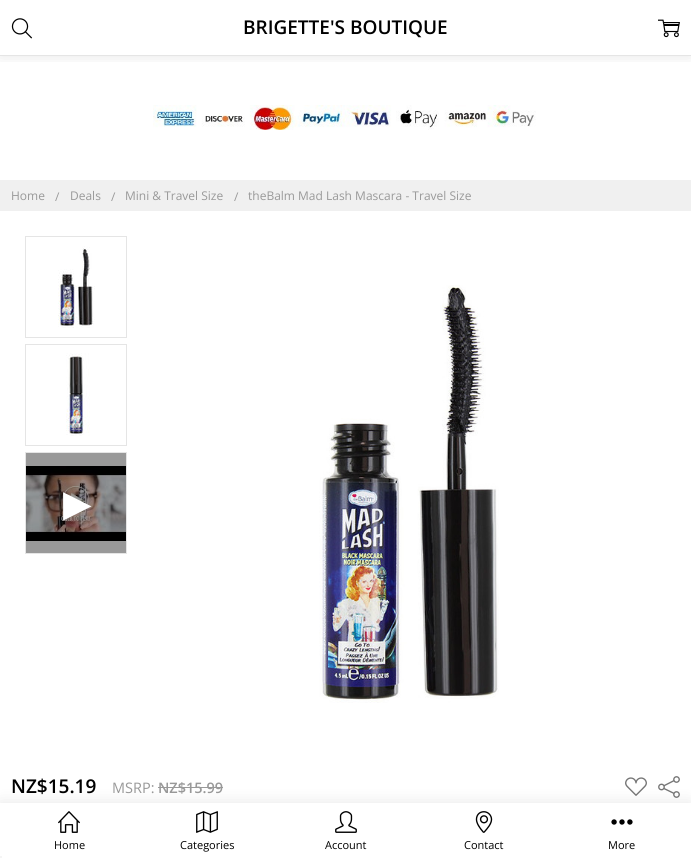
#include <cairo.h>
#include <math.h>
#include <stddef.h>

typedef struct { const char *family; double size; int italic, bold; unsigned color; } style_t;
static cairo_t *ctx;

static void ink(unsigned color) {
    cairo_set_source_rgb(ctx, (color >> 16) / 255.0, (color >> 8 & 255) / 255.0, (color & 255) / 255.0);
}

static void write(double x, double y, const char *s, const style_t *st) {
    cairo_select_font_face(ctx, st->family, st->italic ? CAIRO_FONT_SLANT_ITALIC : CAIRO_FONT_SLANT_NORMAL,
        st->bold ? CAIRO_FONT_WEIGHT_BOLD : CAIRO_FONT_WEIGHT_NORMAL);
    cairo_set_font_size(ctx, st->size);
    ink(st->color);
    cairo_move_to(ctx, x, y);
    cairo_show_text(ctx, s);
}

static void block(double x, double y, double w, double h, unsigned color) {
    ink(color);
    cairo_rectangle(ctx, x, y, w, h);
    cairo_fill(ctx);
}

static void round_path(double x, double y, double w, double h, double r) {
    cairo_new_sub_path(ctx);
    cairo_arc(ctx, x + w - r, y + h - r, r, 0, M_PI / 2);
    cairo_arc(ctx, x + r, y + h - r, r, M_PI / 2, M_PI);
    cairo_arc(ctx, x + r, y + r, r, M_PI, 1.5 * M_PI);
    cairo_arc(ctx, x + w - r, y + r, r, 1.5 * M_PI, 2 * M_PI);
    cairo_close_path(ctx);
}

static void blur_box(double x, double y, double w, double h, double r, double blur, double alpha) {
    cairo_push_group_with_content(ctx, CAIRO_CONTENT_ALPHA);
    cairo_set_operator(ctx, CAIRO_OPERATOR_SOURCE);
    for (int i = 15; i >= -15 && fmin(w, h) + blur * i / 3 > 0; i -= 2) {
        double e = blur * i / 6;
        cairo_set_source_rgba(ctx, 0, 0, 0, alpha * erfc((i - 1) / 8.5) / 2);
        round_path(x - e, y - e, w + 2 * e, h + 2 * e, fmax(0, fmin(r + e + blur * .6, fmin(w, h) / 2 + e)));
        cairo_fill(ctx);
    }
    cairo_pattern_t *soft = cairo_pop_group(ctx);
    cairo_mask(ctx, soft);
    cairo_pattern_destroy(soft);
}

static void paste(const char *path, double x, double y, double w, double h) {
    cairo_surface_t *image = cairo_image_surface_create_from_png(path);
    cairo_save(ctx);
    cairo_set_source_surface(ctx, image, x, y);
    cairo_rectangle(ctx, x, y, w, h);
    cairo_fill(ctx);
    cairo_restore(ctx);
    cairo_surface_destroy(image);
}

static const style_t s1 = {"Open Sans SemiBold", 19, 0, 0, 0x000000};
static const style_t s2 = {"Open Sans", 12, 0, 0, 0x999999};
static const style_t s3 = {"DejaVu Sans", 35, 0, 1, 0xffffff};
static const style_t s4 = {"Open Sans", 14.5, 0, 0, 0x999999};
static const style_t s5 = {"Open Sans SemiBold", 14.5, 0, 0, 0x999999};
static const style_t s6 = {"Open Sans", 11, 0, 0, 0x000000};

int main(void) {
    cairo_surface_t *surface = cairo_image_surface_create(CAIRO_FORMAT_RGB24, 691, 858);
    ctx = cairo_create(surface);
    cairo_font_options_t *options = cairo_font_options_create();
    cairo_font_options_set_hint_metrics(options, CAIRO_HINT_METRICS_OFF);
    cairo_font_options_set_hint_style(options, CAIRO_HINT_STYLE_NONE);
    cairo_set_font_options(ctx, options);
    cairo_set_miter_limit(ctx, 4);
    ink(0xffffff);
    cairo_paint(ctx);
    cairo_save(ctx);
    cairo_rectangle(ctx, 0, 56, 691, 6);
    cairo_clip(ctx);
    ink(0x000000);
    blur_box(0, 0, 691, 56, 0, 7.5, 0.1);
    cairo_restore(ctx);
    block(0, 55, 691, 1, 0xe5e5e5);
    paste("pic1.png", 11, 18, 22, 21);
    paste("pic2.png", 658, 19, 22, 19);
    write(243, 34, "BRIGETTE'S BOUTIQUE", &s1);
    paste("pic3.png", 153, 105, 383, 25);
    block(0, 180, 691, 31, 0xf0f0f0);
    write(11, 200, "Home", &s2);
    write(55, 201, "/", &s2);
    write(70, 200, "Deals", &s2);
    write(111, 201, "/", &s2);
    write(125, 200, "Mini & Travel Size", &s2);
    write(234, 201, "/", &s2);
    write(248, 200, "theBalm Mad Lash Mascara - Travel Size", &s2);
    cairo_rectangle(ctx, 25.5, 236.5, 101, 101);
    ink(0xe5e5e5);
    cairo_set_line_width(ctx, 1);
    cairo_stroke(ctx);
    paste("pic4.png", 58, 246, 37, 82);
    cairo_rectangle(ctx, 25.5, 344.5, 101, 101);
    cairo_stroke(ctx);
    paste("pic5.png", 66, 353, 24, 83);
    ink(0x999999);
    cairo_rectangle(ctx, 25.5, 452.5, 101, 101);
    cairo_fill_preserve(ctx);
    ink(0xe5e5e5);
    cairo_stroke(ctx);
    paste("pic6.png", 26, 466, 100, 75);
    write(63, 516, "▶", &s3);
    paste("pic7.png", 319, 285, 180, 418);
    write(11, 793, "NZ$15.19", &s1);
    write(112, 793, "MSRP:", &s4);
    write(158, 793, "NZ$15.99", &s5);
    block(158, 787, 65, 1, 0x999999);
    paste("pic8.png", 625, 777, 22, 19);
    paste("pic9.png", 658, 776, 22, 22);
    ink(0x000000);
    blur_box(0, 803, 691, 55, 0, 7.5, 0.1);
    block(0, 803, 691, 55, 0xffffff);
    paste("pic10.png", 58, 811, 22, 22);
    write(54, 849, "Home", &s6);
    paste("pic11.png", 196, 811, 22, 22);
    write(180, 849, "Categories", &s6);
    paste("pic12.png", 335, 811, 22, 22);
    write(325, 849, "Account", &s6);
    paste("pic13.png", 475, 811, 18, 22);
    write(464, 849, "Contact", &s6);
    paste("pic14.png", 611, 819, 22, 6);
    write(608, 849, "More", &s6);
    block(0, 856, 2, 2, 0xf5f5f5);
    cairo_surface_write_to_png(surface, "screenshot.png");
    cairo_font_options_destroy(options);
    cairo_destroy(ctx);
    cairo_surface_destroy(surface);
    return 0;
}
